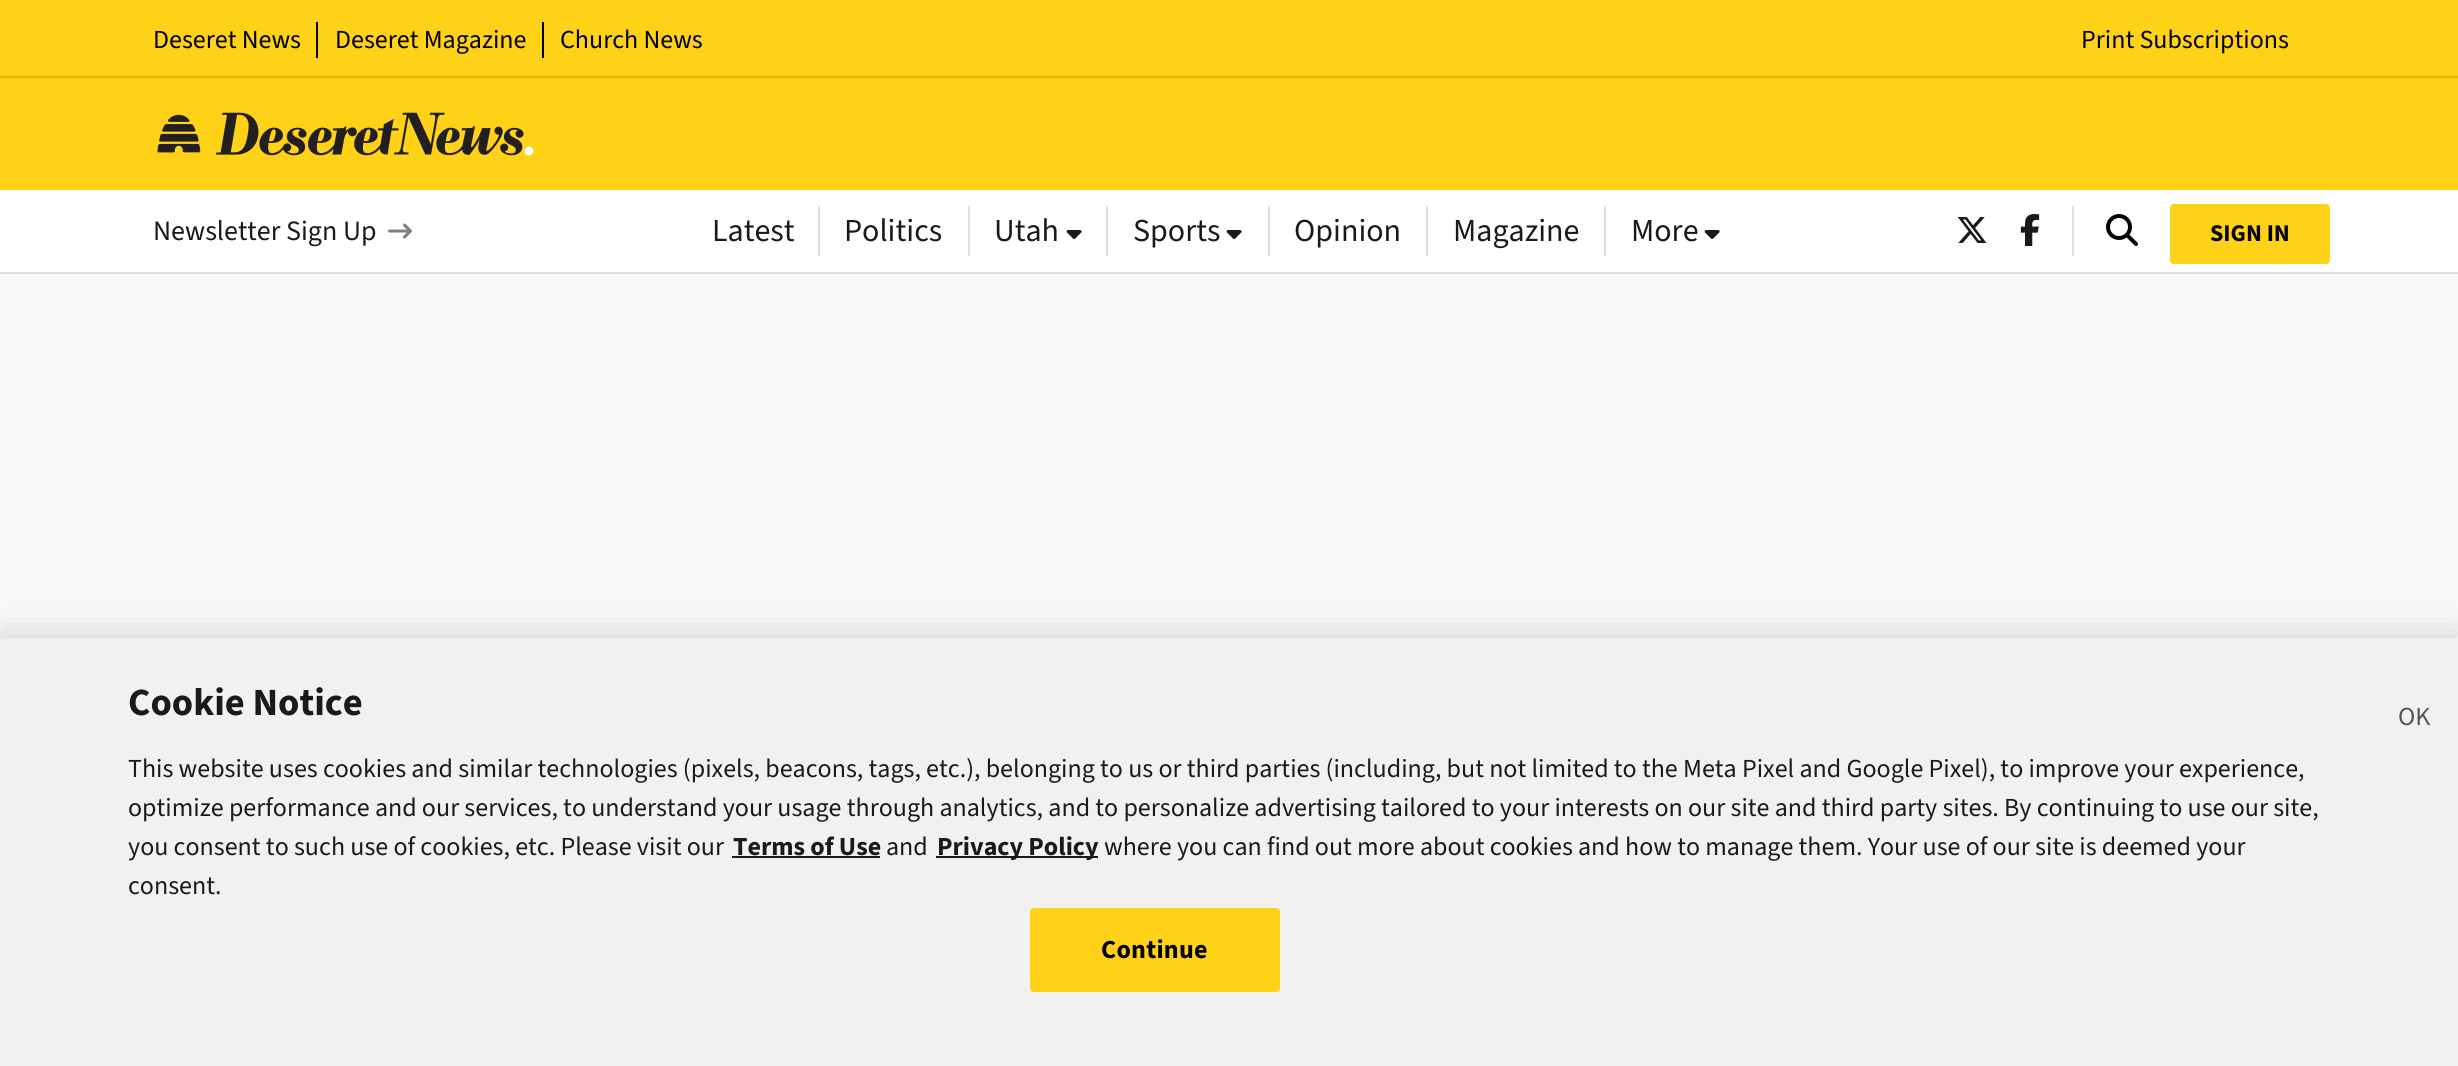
#include <cairo.h>
#include <math.h>
#include <stddef.h>

typedef struct { const char *family; double size; int italic, bold; unsigned color; } style_t;
static cairo_t *ctx;

static void ink(unsigned color) {
    cairo_set_source_rgb(ctx, (color >> 16) / 255.0, (color >> 8 & 255) / 255.0, (color & 255) / 255.0);
}

static void write(double x, double y, const char *s, const style_t *st) {
    cairo_select_font_face(ctx, st->family, st->italic ? CAIRO_FONT_SLANT_ITALIC : CAIRO_FONT_SLANT_NORMAL,
        st->bold ? CAIRO_FONT_WEIGHT_BOLD : CAIRO_FONT_WEIGHT_NORMAL);
    cairo_set_font_size(ctx, st->size);
    ink(st->color);
    cairo_move_to(ctx, x, y);
    cairo_show_text(ctx, s);
}

static void write_spaced(double x, double y, const char *s, double letter, double word) {
    cairo_move_to(ctx, x, y);
    while (*s) {
        char ch[5] = {0};
        int n = 0;
        do ch[n++] = *s++; while ((*s & 0xC0) == 0x80);
        cairo_show_text(ctx, ch);
        cairo_rel_move_to(ctx, letter + word * (*ch == ' '), 0);
    }
}

static void block(double x, double y, double w, double h, unsigned color) {
    ink(color);
    cairo_rectangle(ctx, x, y, w, h);
    cairo_fill(ctx);
}

static void round_path(double x, double y, double w, double h, double r) {
    cairo_new_sub_path(ctx);
    cairo_arc(ctx, x + w - r, y + h - r, r, 0, M_PI / 2);
    cairo_arc(ctx, x + r, y + h - r, r, M_PI / 2, M_PI);
    cairo_arc(ctx, x + r, y + r, r, M_PI, 1.5 * M_PI);
    cairo_arc(ctx, x + w - r, y + r, r, 1.5 * M_PI, 2 * M_PI);
    cairo_close_path(ctx);
}

static void blur_box(double x, double y, double w, double h, double r, double blur, double alpha) {
    cairo_push_group_with_content(ctx, CAIRO_CONTENT_ALPHA);
    cairo_set_operator(ctx, CAIRO_OPERATOR_SOURCE);
    for (int i = 15; i >= -15 && fmin(w, h) + blur * i / 3 > 0; i -= 2) {
        double e = blur * i / 6;
        cairo_set_source_rgba(ctx, 0, 0, 0, alpha * erfc((i - 1) / 8.5) / 2);
        round_path(x - e, y - e, w + 2 * e, h + 2 * e, fmax(0, fmin(r + e + blur * .6, fmin(w, h) / 2 + e)));
        cairo_fill(ctx);
    }
    cairo_pattern_t *soft = cairo_pop_group(ctx);
    cairo_mask(ctx, soft);
    cairo_pattern_destroy(soft);
}

static void paste(const char *path, double x, double y, double w, double h) {
    cairo_surface_t *image = cairo_image_surface_create_from_png(path);
    cairo_save(ctx);
    cairo_set_source_surface(ctx, image, x, y);
    cairo_rectangle(ctx, x, y, w, h);
    cairo_fill(ctx);
    cairo_restore(ctx);
    cairo_surface_destroy(image);
}

static const style_t s1 = {"Source Sans 3", 26.02, 0, 0, 0x000000};
static const style_t s2 = {"Source Sans 3", 28, 0, 0, 0x1a1a19};
static const style_t s3 = {"Source Sans 3", 32, 0, 0, 0x1a1a19};
static const style_t s4 = {"Source Sans 3", 24, 0, 1, 0x000000};
static const style_t s5 = {"Source Sans 3", 38.5, 0, 1, 0x1a1a19};
static const style_t s6 = {"Source Sans 3", 26.02, 0, 0, 0x1a1a19};
static const style_t s7 = {"Source Sans 3", 26.02, 0, 1, 0x1a1a19};
static const style_t s8 = {"Source Sans 3", 26, 0, 0, 0x555555};

int main(void) {
    cairo_surface_t *surface = cairo_image_surface_create(CAIRO_FORMAT_RGB24, 2458, 1066);
    ctx = cairo_create(surface);
    cairo_font_options_t *options = cairo_font_options_create();
    cairo_font_options_set_hint_metrics(options, CAIRO_HINT_METRICS_OFF);
    cairo_font_options_set_hint_style(options, CAIRO_HINT_STYLE_NONE);
    cairo_set_font_options(ctx, options);
    cairo_set_miter_limit(ctx, 4);
    ink(0xfaf9f7);
    cairo_paint(ctx);
    block(0, 0, 2458, 76, 0xffd217);
    block(0, 76, 2458, 2, 0xe3b700);
    write(153, 48, "Deseret News", &s1);
    block(316, 22, 2, 36, 0x000000);
    write(335, 48, "Deseret Magazine", &s1);
    block(542, 22, 2, 36, 0x000000);
    write(560, 48, "Church News", &s1);
    write(2081, 48, "Print Subscriptions", &s1);
    block(0, 78, 2458, 112, 0xffd217);
    paste("pic1.png", 157, 112, 377, 44);
    block(0, 190, 2458, 82, 0xffffff);
    block(0, 272, 2458, 2, 0xdfe0e1);
    write(153, 240, "Newsletter Sign Up", &s2);
    paste("pic2.png", 388, 223, 24, 16);
    write(712, 241, "Latest", &s3);
    block(818, 206, 2, 50, 0xdfe0e1);
    write(844, 241, "Politics", &s3);
    block(968, 206, 2, 50, 0xdfe0e1);
    write(994, 241, "Utah", &s3);
    paste("pic3.png", 1066, 230, 16, 9);
    block(1106, 206, 2, 50, 0xdfe0e1);
    write(1133, 241, "Sports", &s3);
    paste("pic3.png", 1226, 230, 16, 9);
    block(1268, 206, 2, 50, 0xdfe0e1);
    write(1294, 241, "Opinion", &s3);
    block(1426, 206, 2, 50, 0xdfe0e1);
    write(1453, 241, "Magazine", &s3);
    block(1604, 206, 2, 50, 0xdfe0e1);
    write(1631, 241, "More", &s3);
    paste("pic3.png", 1704, 230, 16, 9);
    paste("pic4.png", 1957, 217, 30, 26);
    paste("pic5.png", 2020, 214, 20, 32);
    block(2072, 206, 2, 50, 0xdfe0e1);
    paste("pic6.png", 2106, 214, 32, 32);
    ink(0xffd217);
    round_path(2170, 204, 160, 60, 4);
    cairo_fill(ctx);
    write(2210, 241, "SIGN IN", &s4);
    ink(0x000000);
    blur_box(0, 638, 2458, 428, 0, 18, 0.2);
    block(0, 638, 2458, 428, 0xf3f1f0);
    write(128, 715, "Cookie Notice", &s5);
    write(128, 777, "This website uses cookies and similar technologies (pixels, beacons, tags, etc.), belonging to us or third parties (including, but not limited to the Meta Pixel and Google Pixel), to improve your experience,", &s6);
    write(128, 816, "optimize performance and our services, to understand your usage through analytics, and to personalize advertising tailored to your interests on our site and third party sites. By continuing to use our site,", &s6);
    write(128, 855, "you consent to such use of cookies, etc. Please visit our", &s6);
    write(733, 855, "Terms of Use", &s7);
    block(732, 856, 148, 2, 0x1a1a19);
    write(886, 855, "and", &s6);
    block(936, 856, 162, 2, 0x1a1a19);
    write(937, 855, "Privacy Policy", &s7);
    write(1104, 855, "where you can find out more about cookies and how to manage them. Your use of our site is deemed your", &s6);
    write(128, 894, "consent.", &s6);
    ink(0xffd217);
    round_path(1031, 909, 248, 82, 3);
    cairo_fill_preserve(ctx);
    cairo_stroke(ctx);
    cairo_select_font_face(ctx, "Source Sans 3", CAIRO_FONT_SLANT_NORMAL, CAIRO_FONT_WEIGHT_BOLD);
    ink(0x000000);
    write_spaced(1101, 958, "Continue", 0.25, 0);
    write(2398, 725, "OK", &s8);
    cairo_surface_write_to_png(surface, "screenshot.png");
    cairo_font_options_destroy(options);
    cairo_destroy(ctx);
    cairo_surface_destroy(surface);
    return 0;
}
